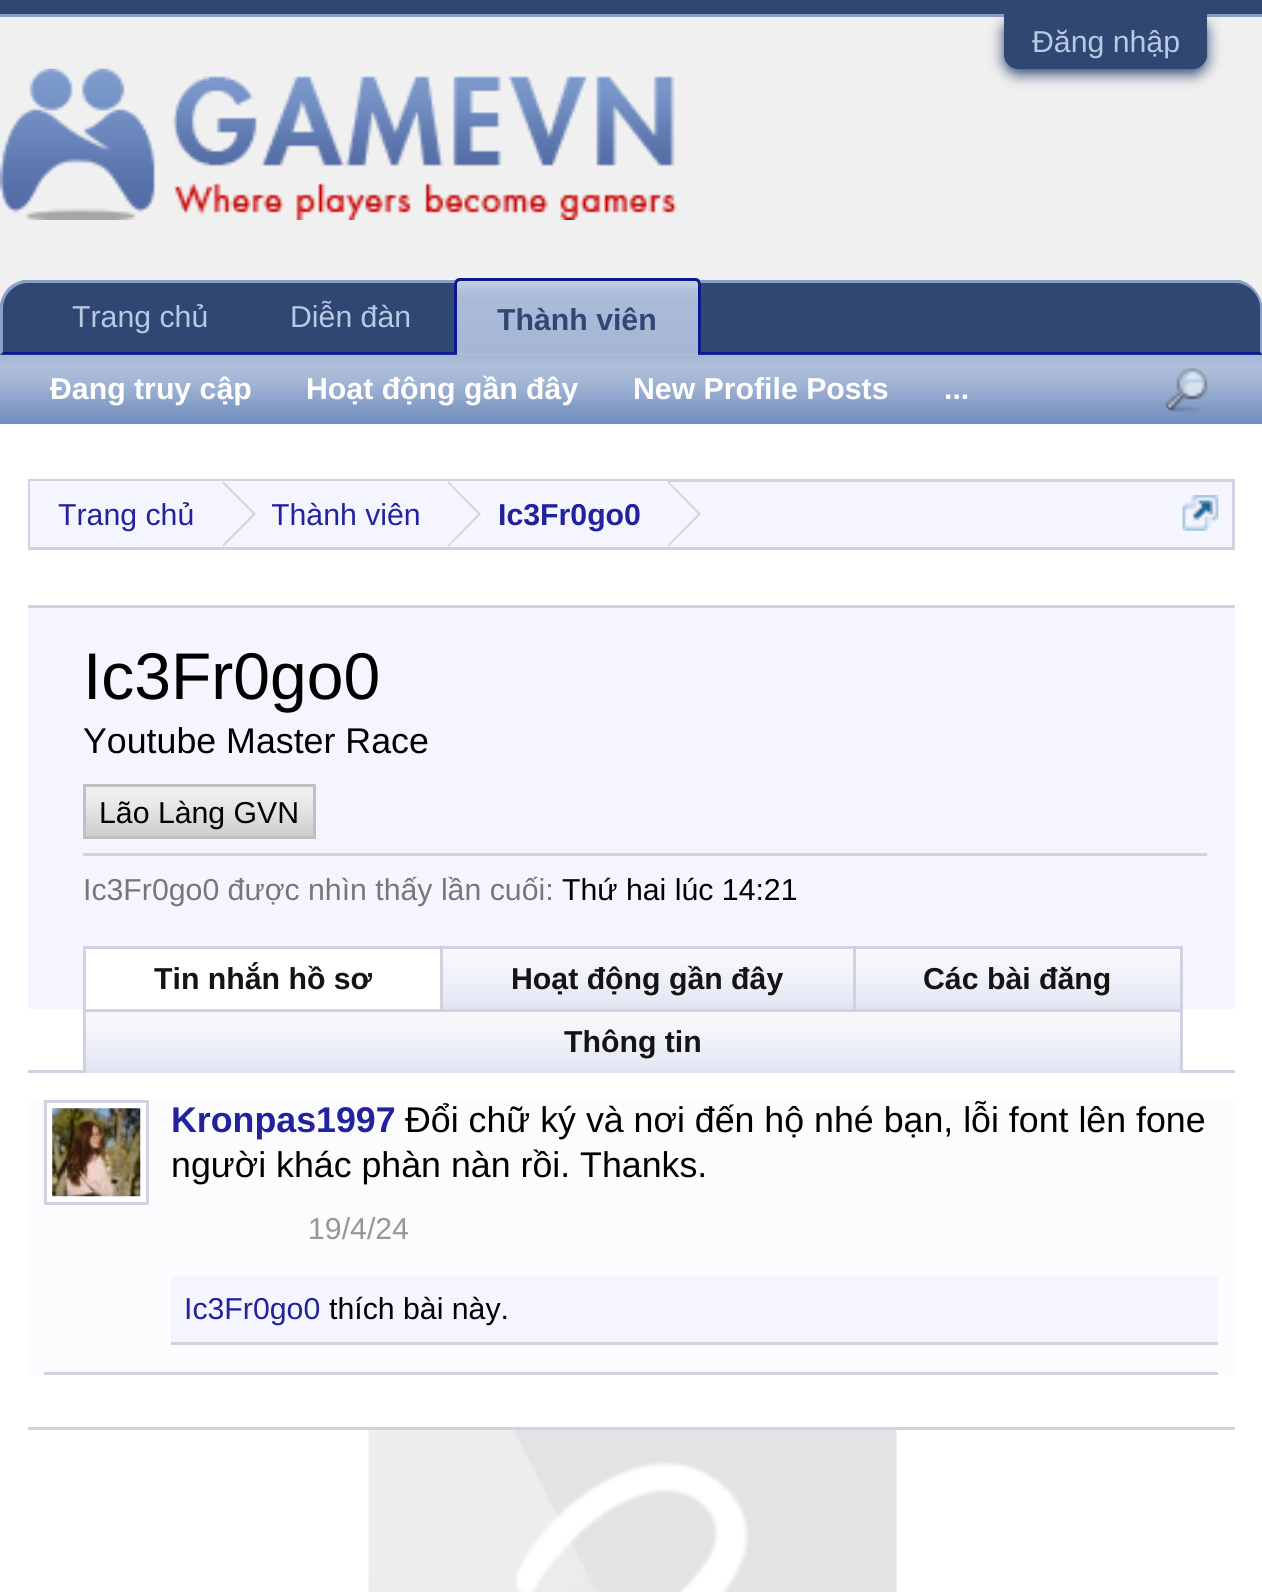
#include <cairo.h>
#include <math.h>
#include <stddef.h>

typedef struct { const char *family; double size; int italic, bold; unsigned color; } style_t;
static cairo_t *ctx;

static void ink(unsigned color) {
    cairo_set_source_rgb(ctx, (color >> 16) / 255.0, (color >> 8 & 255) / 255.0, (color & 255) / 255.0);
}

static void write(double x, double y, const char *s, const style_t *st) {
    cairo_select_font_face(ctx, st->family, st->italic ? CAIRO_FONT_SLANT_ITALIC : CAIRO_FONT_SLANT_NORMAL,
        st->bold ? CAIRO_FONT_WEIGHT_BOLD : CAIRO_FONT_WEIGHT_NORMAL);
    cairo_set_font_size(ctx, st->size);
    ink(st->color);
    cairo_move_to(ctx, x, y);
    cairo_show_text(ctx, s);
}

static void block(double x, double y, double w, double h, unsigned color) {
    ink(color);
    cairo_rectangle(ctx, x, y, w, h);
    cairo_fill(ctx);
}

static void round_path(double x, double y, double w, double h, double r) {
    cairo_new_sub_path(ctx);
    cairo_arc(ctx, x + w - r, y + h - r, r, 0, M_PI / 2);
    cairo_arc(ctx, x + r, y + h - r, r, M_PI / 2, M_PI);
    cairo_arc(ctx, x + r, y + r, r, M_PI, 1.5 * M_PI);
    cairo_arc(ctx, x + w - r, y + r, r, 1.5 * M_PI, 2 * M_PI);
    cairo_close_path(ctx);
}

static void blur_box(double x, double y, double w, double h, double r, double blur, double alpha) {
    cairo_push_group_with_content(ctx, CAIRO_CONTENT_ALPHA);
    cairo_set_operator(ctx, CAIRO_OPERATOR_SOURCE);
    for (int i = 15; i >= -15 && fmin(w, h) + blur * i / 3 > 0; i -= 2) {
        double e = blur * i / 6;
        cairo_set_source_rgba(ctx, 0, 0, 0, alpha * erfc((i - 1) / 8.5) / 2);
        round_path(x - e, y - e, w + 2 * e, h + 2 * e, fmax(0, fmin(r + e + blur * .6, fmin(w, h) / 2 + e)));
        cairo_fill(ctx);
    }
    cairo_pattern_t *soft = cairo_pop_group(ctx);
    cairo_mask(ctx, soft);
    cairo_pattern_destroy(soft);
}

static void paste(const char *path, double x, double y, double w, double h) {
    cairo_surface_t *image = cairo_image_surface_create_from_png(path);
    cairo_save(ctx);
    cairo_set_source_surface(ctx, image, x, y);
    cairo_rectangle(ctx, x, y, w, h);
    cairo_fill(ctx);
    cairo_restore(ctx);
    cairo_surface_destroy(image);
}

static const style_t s1 = {"Liberation Sans", 30.25, 0, 0, 0xb8c9e3};
static const style_t s2 = {"Liberation Sans", 30.25, 0, 1, 0x304774};
static const style_t s3 = {"Liberation Sans", 30.25, 0, 1, 0xffffff};
static const style_t s4 = {"Liberation Sans", 30.25, 0, 0, 0x22229c};
static const style_t s5 = {"Liberation Sans", 30.25, 0, 1, 0x22229c};
static const style_t s6 = {"Liberation Sans", 66, 0, 0, 0x000000};
static const style_t s7 = {"Liberation Sans", 35.75, 0, 0, 0x000000};
static const style_t s8 = {"Liberation Sans", 30.25, 0, 0, 0x000000};
static const style_t s9 = {"Liberation Sans", 30.25, 0, 0, 0x777777};
static const style_t s10 = {"Liberation Sans", 30.25, 0, 1, 0x141414};
static const style_t s11 = {"Liberation Sans", 35.75, 0, 1, 0x22229c};
static const style_t s12 = {"Liberation Sans", 30.25, 0, 0, 0x969696};

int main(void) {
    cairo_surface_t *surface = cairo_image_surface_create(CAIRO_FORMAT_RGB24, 1262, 1592);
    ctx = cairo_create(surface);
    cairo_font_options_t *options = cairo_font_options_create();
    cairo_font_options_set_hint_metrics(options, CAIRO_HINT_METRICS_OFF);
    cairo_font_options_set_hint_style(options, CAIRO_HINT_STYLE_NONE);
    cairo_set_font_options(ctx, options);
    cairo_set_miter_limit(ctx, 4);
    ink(0xf0f0f0);
    cairo_paint(ctx);
    block(0, 0, 1262, 14, 0x304774);
    block(0, 14, 1262, 3, 0x899fc5);
    ink(0x304774);
    blur_box(1004, 19, 203, 55, 14, 7, 1);
    ink(0x304774);
    cairo_new_path(ctx);
    cairo_move_to(ctx, 1004, 14);
    cairo_line_to(ctx, 1207, 14);
    cairo_line_to(ctx, 1207, 55);
    cairo_curve_to(ctx, 1207, 62.5, 1200.5, 69, 1193, 69);
    cairo_line_to(ctx, 1018, 69);
    cairo_curve_to(ctx, 1010.5, 69, 1004, 62.5, 1004, 55);
    cairo_close_path(ctx);
    cairo_fill(ctx);
    write(1032, 52, "Đăng nhập", &s1);
    paste("pic1.png", 0, 68, 677, 152);
    ink(0x304774);
    cairo_new_path(ctx);
    cairo_move_to(ctx, 28, 281);
    cairo_line_to(ctx, 1234, 281);
    cairo_curve_to(ctx, 1249.5, 281, 1262, 293.5, 1262, 309);
    cairo_line_to(ctx, 1262, 355);
    cairo_line_to(ctx, 0, 355);
    cairo_line_to(ctx, 0, 309);
    cairo_curve_to(ctx, 0, 293.5, 12.5, 281, 28, 281);
    cairo_close_path(ctx);
    cairo_fill(ctx);
    ink(0x899fc5);
    cairo_new_path(ctx);
    cairo_move_to(ctx, 28, 283);
    cairo_curve_to(ctx, 21, 283, 15, 286, 10, 291);
    cairo_line_to(ctx, 8, 288);
    cairo_curve_to(ctx, 12, 284, 17, 282, 23, 280);
    cairo_line_to(ctx, 1240, 280);
    cairo_curve_to(ctx, 1246, 282, 1250, 284, 1254, 289);
    cairo_line_to(ctx, 1252, 290);
    cairo_curve_to(ctx, 1248, 286, 1242, 283, 1235, 283);
    cairo_close_path(ctx);
    cairo_fill(ctx);
    cairo_new_path(ctx);
    cairo_move_to(ctx, 1254, 289);
    cairo_curve_to(ctx, 1259, 294, 1262, 301, 1262, 308);
    cairo_line_to(ctx, 1262, 354);
    cairo_line_to(ctx, 1260, 352);
    cairo_line_to(ctx, 1260, 308);
    cairo_curve_to(ctx, 1260, 301, 1257, 295, 1252, 290);
    cairo_close_path(ctx);
    cairo_fill(ctx);
    ink(0x0b198c);
    cairo_new_path(ctx);
    cairo_move_to(ctx, 1262, 355);
    cairo_line_to(ctx, 0, 355);
    cairo_line_to(ctx, 3, 352);
    cairo_line_to(ctx, 1260, 352);
    cairo_close_path(ctx);
    cairo_fill(ctx);
    ink(0x899fc5);
    cairo_new_path(ctx);
    cairo_move_to(ctx, 0, 355);
    cairo_line_to(ctx, 3, 352);
    cairo_line_to(ctx, 3, 308);
    cairo_curve_to(ctx, 3, 301, 6, 295, 10, 291);
    cairo_line_to(ctx, 8, 288);
    cairo_curve_to(ctx, 3, 294, 0, 301, 0, 308);
    cairo_close_path(ctx);
    cairo_fill(ctx);
    write(72, 327, "Trang chủ", &s1);
    write(290, 327, "Diễn đàn", &s1);
    ink(0x738fbf);
    cairo_new_path(ctx);
    cairo_move_to(ctx, 460, 278);
    cairo_line_to(ctx, 695, 278);
    cairo_curve_to(ctx, 698.5, 278, 701, 280.5, 701, 284);
    cairo_line_to(ctx, 701, 358);
    cairo_line_to(ctx, 454, 358);
    cairo_line_to(ctx, 454, 284);
    cairo_curve_to(ctx, 454, 280.5, 456.5, 278, 460, 278);
    cairo_close_path(ctx);
    cairo_fill(ctx);
    paste("pic2.png", 453, 280, 249, 75);
    cairo_new_path(ctx);
    cairo_move_to(ctx, 460, 279.5);
    cairo_line_to(ctx, 695, 279.5);
    cairo_curve_to(ctx, 697.5, 279.5, 699.5, 281.5, 699.5, 284);
    cairo_line_to(ctx, 699.5, 356.5);
    cairo_line_to(ctx, 455.5, 356.5);
    cairo_line_to(ctx, 455.5, 284);
    cairo_curve_to(ctx, 455.5, 281.5, 457.5, 279.5, 460, 279.5);
    cairo_close_path(ctx);
    ink(0x0b198c);
    cairo_set_line_width(ctx, 3);
    cairo_stroke(ctx);
    write(497, 330, "Thành viên", &s2);
    block(0, 355, 1262, 69, 0x738fbf);
    paste("pic3.png", 0, 354, 1262, 65);
    write(50, 399, "Đang truy cập", &s3);
    write(306, 399, "Hoạt động gần đây", &s3);
    write(633, 399, "New Profile Posts", &s3);
    write(944, 399, "...", &s3);
    paste("pic4.png", 1165, 368, 43, 44);
    block(0, 424, 1262, 1168, 0xffffff);
    block(668, 482, 564, 65, 0xf5f5ff);
    cairo_rectangle(ctx, 29.5, 480.5, 1204, 68);
    ink(0xd1d1e1);
    cairo_stroke(ctx);
    block(30, 481, 638, 66, 0xf5f5ff);
    write(58, 525, "Trang chủ", &s4);
    ink(0xd1d1e1);
    cairo_new_path(ctx);
    cairo_move_to(ctx, 223, 547);
    cairo_line_to(ctx, 223, 481);
    cairo_line_to(ctx, 256, 514);
    cairo_close_path(ctx);
    cairo_fill(ctx);
    ink(0xf5f5ff);
    cairo_new_path(ctx);
    cairo_move_to(ctx, 220, 547);
    cairo_line_to(ctx, 220, 481);
    cairo_line_to(ctx, 253, 514);
    cairo_close_path(ctx);
    cairo_fill(ctx);
    cairo_save(ctx);
    cairo_rectangle(ctx, 272, 481, 149, 66);
    cairo_clip(ctx);
    write(271, 525, "Thành viên", &s4);
    cairo_restore(ctx);
    ink(0xd1d1e1);
    cairo_new_path(ctx);
    cairo_move_to(ctx, 448, 547);
    cairo_line_to(ctx, 448, 481);
    cairo_line_to(ctx, 481, 514);
    cairo_close_path(ctx);
    cairo_fill(ctx);
    ink(0xf5f5ff);
    cairo_new_path(ctx);
    cairo_move_to(ctx, 446, 547);
    cairo_line_to(ctx, 446, 481);
    cairo_line_to(ctx, 478, 514);
    cairo_close_path(ctx);
    cairo_fill(ctx);
    write(498, 525, "Ic3Fr0go0", &s5);
    ink(0xd1d1e1);
    cairo_new_path(ctx);
    cairo_move_to(ctx, 668, 547);
    cairo_line_to(ctx, 668, 481);
    cairo_line_to(ctx, 701, 514);
    cairo_close_path(ctx);
    cairo_fill(ctx);
    ink(0xf5f5ff);
    cairo_new_path(ctx);
    cairo_move_to(ctx, 666, 547);
    cairo_line_to(ctx, 666, 481);
    cairo_line_to(ctx, 698, 514);
    cairo_close_path(ctx);
    cairo_fill(ctx);
    paste("pic5.png", 1182, 495, 37, 36);
    block(28, 1427, 1207, 3, 0xd1d1e1);
    block(28, 605, 1207, 3, 0xd1d1e1);
    block(28, 608, 1207, 401, 0xf5f5ff);
    write(83, 699, "Ic3Fr0go0", &s6);
    write(83, 753, "Youtube Master Race", &s7);
    block(86, 787, 227, 49, 0xc0c0c0);
    paste("pic6.png", 86, 787, 227, 49);
    cairo_rectangle(ctx, 84.5, 785.5, 230, 52);
    cairo_stroke(ctx);
    write(99, 823, "Lão Làng GVN", &s8);
    block(83, 853, 1124, 3, 0xd1d1e1);
    write(83, 900, "Ic3Fr0go0 được nhìn thấy lần cuối:", &s9);
    write(562, 900, "Thứ hai lúc 14:21", &s8);
    block(28, 1070, 1207, 3, 0xd1d1e1);
    block(86, 949, 354, 60, 0xffffff);
    block(83, 946, 772, 3, 0xd1d1e1);
    block(83, 946, 3, 66, 0xd1d1e1);
    write(154, 989, "Tin nhắn hồ sơ", &s10);
    block(443, 949, 410, 60, 0xe1e4f2);
    paste("pic7.png", 443, 949, 410, 55);
    block(440, 946, 3, 63, 0xd1d1e1);
    write(511, 989, "Hoạt động gần đây", &s10);
    block(856, 949, 324, 60, 0xe1e4f2);
    paste("pic8.png", 852, 948, 328, 56);
    block(853, 946, 330, 3, 0xd1d1e1);
    block(1180, 946, 3, 63, 0xd1d1e1);
    block(853, 946, 3, 63, 0xd1d1e1);
    write(923, 989, "Các bài đăng", &s10);
    block(86, 1012, 1094, 61, 0xe1e4f2);
    paste("pic9.png", 86, 1012, 1094, 55);
    block(83, 1009, 1100, 3, 0xd1d1e1);
    block(1180, 1009, 3, 64, 0xd1d1e1);
    block(83, 1009, 3, 64, 0xd1d1e1);
    write(564, 1052, "Thông tin", &s10);
    block(28, 1100, 1207, 275, 0xfcfcff);
    block(44, 1372, 1174, 3, 0xd1d1e1);
    ink(0xffffff);
    cairo_rectangle(ctx, 45.5, 1101.5, 102, 102);
    cairo_fill_preserve(ctx);
    ink(0xd1d1e1);
    cairo_stroke(ctx);
    paste("pic10.png", 52, 1108, 89, 89);
    write(171, 1132, "Kronpas1997", &s11);
    write(405, 1132, "Đổi chữ ký và nơi đến hộ nhé bạn, lỗi font lên fone", &s7);
    write(171, 1177, "người khác phàn nàn rồi. Thanks.", &s7);
    write(308, 1239, "19/4/24", &s12);
    block(171, 1276, 1047, 66, 0xf5f5ff);
    block(171, 1342, 1047, 3, 0xd1d1e1);
    write(184, 1319, "Ic3Fr0go0", &s4);
    write(329, 1319, "thích bài này.", &s8);
    paste("pic11.png", 368, 1430, 529, 162);
    cairo_surface_write_to_png(surface, "screenshot.png");
    cairo_font_options_destroy(options);
    cairo_destroy(ctx);
    cairo_surface_destroy(surface);
    return 0;
}
